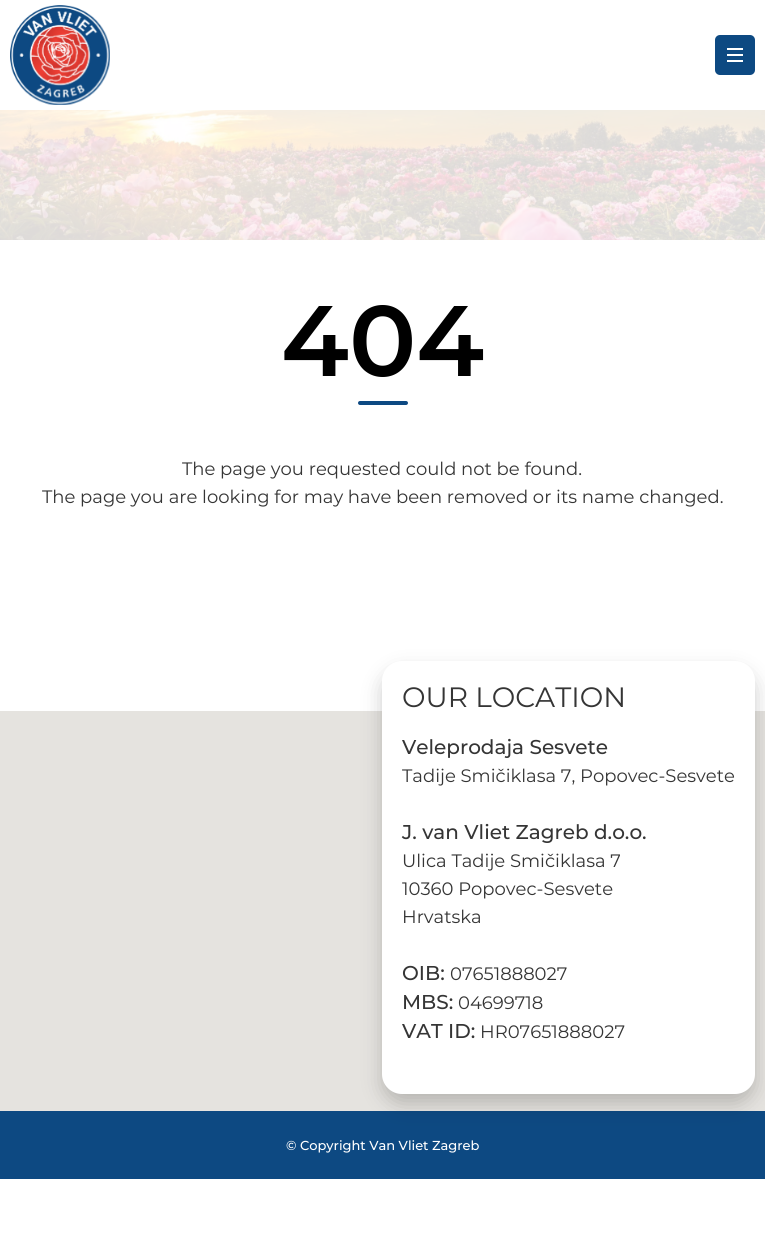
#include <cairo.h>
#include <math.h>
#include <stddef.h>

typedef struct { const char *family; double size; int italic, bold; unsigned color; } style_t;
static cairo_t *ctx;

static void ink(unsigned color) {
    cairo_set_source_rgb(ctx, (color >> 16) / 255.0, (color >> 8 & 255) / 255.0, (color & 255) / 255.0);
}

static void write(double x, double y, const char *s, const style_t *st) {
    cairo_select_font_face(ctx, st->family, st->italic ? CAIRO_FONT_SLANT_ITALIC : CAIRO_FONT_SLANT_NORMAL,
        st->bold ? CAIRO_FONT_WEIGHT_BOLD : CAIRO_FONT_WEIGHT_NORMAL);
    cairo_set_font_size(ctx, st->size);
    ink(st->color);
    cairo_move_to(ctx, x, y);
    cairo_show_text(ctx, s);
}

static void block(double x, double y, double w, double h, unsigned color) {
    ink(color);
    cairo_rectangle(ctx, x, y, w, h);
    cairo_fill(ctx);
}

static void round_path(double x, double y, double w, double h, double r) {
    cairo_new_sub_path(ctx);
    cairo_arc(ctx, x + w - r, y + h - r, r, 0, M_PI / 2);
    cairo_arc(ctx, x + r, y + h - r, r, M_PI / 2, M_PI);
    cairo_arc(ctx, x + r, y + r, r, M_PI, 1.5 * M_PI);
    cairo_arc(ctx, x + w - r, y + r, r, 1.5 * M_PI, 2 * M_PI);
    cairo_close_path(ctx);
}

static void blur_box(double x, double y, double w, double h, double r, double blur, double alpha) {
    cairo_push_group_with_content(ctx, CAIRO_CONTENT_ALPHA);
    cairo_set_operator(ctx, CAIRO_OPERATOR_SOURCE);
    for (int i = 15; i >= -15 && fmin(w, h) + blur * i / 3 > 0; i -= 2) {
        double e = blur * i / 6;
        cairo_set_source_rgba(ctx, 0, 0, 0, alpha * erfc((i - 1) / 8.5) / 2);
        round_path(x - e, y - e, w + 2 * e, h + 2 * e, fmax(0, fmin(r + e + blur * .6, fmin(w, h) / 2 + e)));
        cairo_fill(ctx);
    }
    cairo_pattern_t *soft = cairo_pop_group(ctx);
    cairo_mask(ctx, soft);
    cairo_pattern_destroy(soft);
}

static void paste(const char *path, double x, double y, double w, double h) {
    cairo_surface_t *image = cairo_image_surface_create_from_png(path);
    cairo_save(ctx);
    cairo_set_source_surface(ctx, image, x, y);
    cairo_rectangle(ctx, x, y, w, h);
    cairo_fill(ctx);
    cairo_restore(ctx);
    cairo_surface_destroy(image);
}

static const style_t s1 = {"Montserrat SemiBold", 100, 0, 0, 0x000000};
static const style_t s2 = {"Montserrat", 18, 0, 0, 0x353535};
static const style_t s3 = {"Montserrat", 28, 0, 0, 0x353535};
static const style_t s4 = {"Montserrat Medium", 20, 0, 0, 0x353535};
static const style_t s5 = {"Montserrat Medium", 13, 0, 0, 0xffffff};

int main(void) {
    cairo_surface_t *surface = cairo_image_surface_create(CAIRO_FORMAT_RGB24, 765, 1251);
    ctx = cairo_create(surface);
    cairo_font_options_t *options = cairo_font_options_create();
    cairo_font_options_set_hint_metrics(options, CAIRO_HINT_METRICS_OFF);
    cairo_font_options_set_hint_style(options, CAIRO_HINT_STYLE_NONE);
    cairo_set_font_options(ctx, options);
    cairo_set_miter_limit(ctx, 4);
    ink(0xffffff);
    cairo_paint(ctx);
    paste("pic1.png", 10, 5, 100, 100);
    ink(0x0d4982);
    round_path(715, 35, 40, 40, 5);
    cairo_fill(ctx);
    block(727, 54, 16, 2, 0xffffff);
    block(727, 48, 16, 2, 0xffffff);
    block(727, 60, 16, 2, 0xffffff);
    paste("pic2.png", 0, 110, 765, 130);
    write(281, 376, "404", &s1);
    ink(0x0d4982);
    round_path(358, 401, 50, 4, 2);
    cairo_fill(ctx);
    write(182, 475, "The page you requested could not be found.", &s2);
    write(42, 503, "The page you are looking for may have been removed or its name changed.", &s2);
    block(0, 711, 765, 400, 0xe5e3df);
    block(0, 1111, 765, 68, 0x0d4982);
    ink(0x000000);
    blur_box(382, 671, 373, 433, 20, 10, 0.2);
    ink(0xffffff);
    round_path(382, 661, 373, 433, 20);
    cairo_fill(ctx);
    write(402, 707, "OUR LOCATION", &s3);
    write(402, 754, "Veleprodaja Sesvete", &s4);
    write(402, 782, "Tadije Smičiklasa 7, Popovec-Sesvete", &s2);
    write(402, 839, "J. van Vliet Zagreb d.o.o.", &s4);
    write(402, 867, "Ulica Tadije Smičiklasa 7", &s2);
    write(402, 895, "10360 Popovec-Sesvete", &s2);
    write(402, 923, "Hrvatska", &s2);
    write(402, 980, "OIB:", &s4);
    write(450, 980, "07651888027", &s2);
    write(402, 1009, "MBS:", &s4);
    write(458, 1009, "04699718", &s2);
    write(402, 1038, "VAT ID:", &s4);
    write(480, 1038, "HR07651888027", &s2);
    write(286, 1150, "© Copyright Van Vliet Zagreb", &s5);
    cairo_surface_write_to_png(surface, "screenshot.png");
    cairo_font_options_destroy(options);
    cairo_destroy(ctx);
    cairo_surface_destroy(surface);
    return 0;
}
